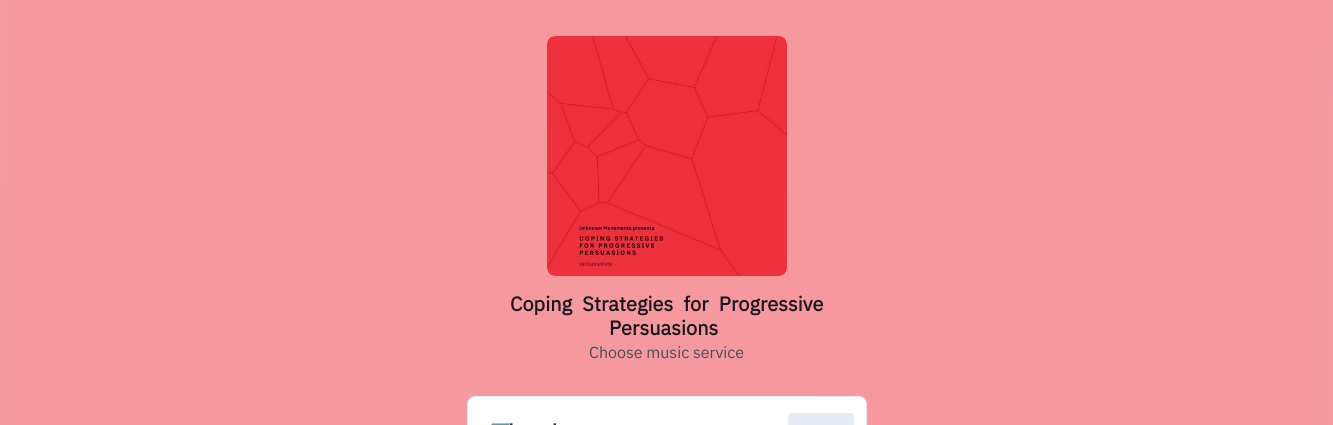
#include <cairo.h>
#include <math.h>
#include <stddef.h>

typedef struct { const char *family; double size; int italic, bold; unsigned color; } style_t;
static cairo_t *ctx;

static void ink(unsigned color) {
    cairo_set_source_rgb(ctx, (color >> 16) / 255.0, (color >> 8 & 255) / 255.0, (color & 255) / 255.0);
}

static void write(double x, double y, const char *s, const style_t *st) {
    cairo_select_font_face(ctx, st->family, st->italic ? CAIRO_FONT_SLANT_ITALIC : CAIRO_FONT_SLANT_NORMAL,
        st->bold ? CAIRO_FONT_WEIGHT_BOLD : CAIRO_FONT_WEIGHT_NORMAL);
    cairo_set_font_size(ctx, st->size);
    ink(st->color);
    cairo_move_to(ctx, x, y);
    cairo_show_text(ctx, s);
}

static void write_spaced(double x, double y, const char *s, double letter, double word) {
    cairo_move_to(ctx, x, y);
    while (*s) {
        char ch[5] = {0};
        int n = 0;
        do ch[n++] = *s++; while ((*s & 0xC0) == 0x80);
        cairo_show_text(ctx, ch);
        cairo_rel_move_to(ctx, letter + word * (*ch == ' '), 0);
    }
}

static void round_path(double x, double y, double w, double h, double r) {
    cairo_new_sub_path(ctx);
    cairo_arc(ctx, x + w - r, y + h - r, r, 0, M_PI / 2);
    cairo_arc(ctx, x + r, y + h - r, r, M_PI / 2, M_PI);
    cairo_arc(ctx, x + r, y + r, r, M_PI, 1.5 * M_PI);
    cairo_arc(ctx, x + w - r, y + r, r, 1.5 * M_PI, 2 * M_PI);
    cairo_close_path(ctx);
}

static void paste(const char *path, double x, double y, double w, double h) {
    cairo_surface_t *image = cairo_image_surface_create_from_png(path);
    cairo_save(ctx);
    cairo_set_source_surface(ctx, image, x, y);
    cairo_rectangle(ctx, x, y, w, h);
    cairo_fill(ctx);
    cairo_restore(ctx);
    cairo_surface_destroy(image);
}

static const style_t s1 = {"IBM Plex Sans", 20, 0, 1, 0x181721};
static const style_t s2 = {"IBM Plex Sans", 16, 0, 0, 0x454b5f};

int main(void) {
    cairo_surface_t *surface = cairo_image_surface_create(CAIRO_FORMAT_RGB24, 1333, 425);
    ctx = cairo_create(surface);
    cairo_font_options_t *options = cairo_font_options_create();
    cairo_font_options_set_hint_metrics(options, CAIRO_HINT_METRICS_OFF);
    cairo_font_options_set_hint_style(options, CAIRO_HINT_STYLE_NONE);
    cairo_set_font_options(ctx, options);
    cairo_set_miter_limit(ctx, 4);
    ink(0xffffff);
    cairo_paint(ctx);
    paste("pic1.png", 0, 0, 1333, 425);
    paste("pic2.png", 547, 36, 240, 240);
    cairo_select_font_face(ctx, "IBM Plex Sans", CAIRO_FONT_SLANT_NORMAL, CAIRO_FONT_WEIGHT_BOLD);
    cairo_set_font_size(ctx, 20);
    ink(0x181721);
    write_spaced(510, 311, "Coping Strategies for Progressive", 0, 5.5);
    write(609, 335, "Persuasions", &s1);
    write(589, 358, "Choose music service", &s2);
    round_path(467.5, 396.5, 399, 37, 7.5);
    ink(0xe6eaf2);
    cairo_set_line_width(ctx, 1);
    cairo_stroke(ctx);
    ink(0xffffff);
    round_path(468, 397, 398, 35, 7);
    cairo_fill(ctx);
    paste("pic3.png", 491, 423, 65, 2);
    ink(0xe6eaf2);
    round_path(788, 413, 66, 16, 4);
    cairo_fill(ctx);
    cairo_surface_write_to_png(surface, "screenshot.png");
    cairo_font_options_destroy(options);
    cairo_destroy(ctx);
    cairo_surface_destroy(surface);
    return 0;
}
